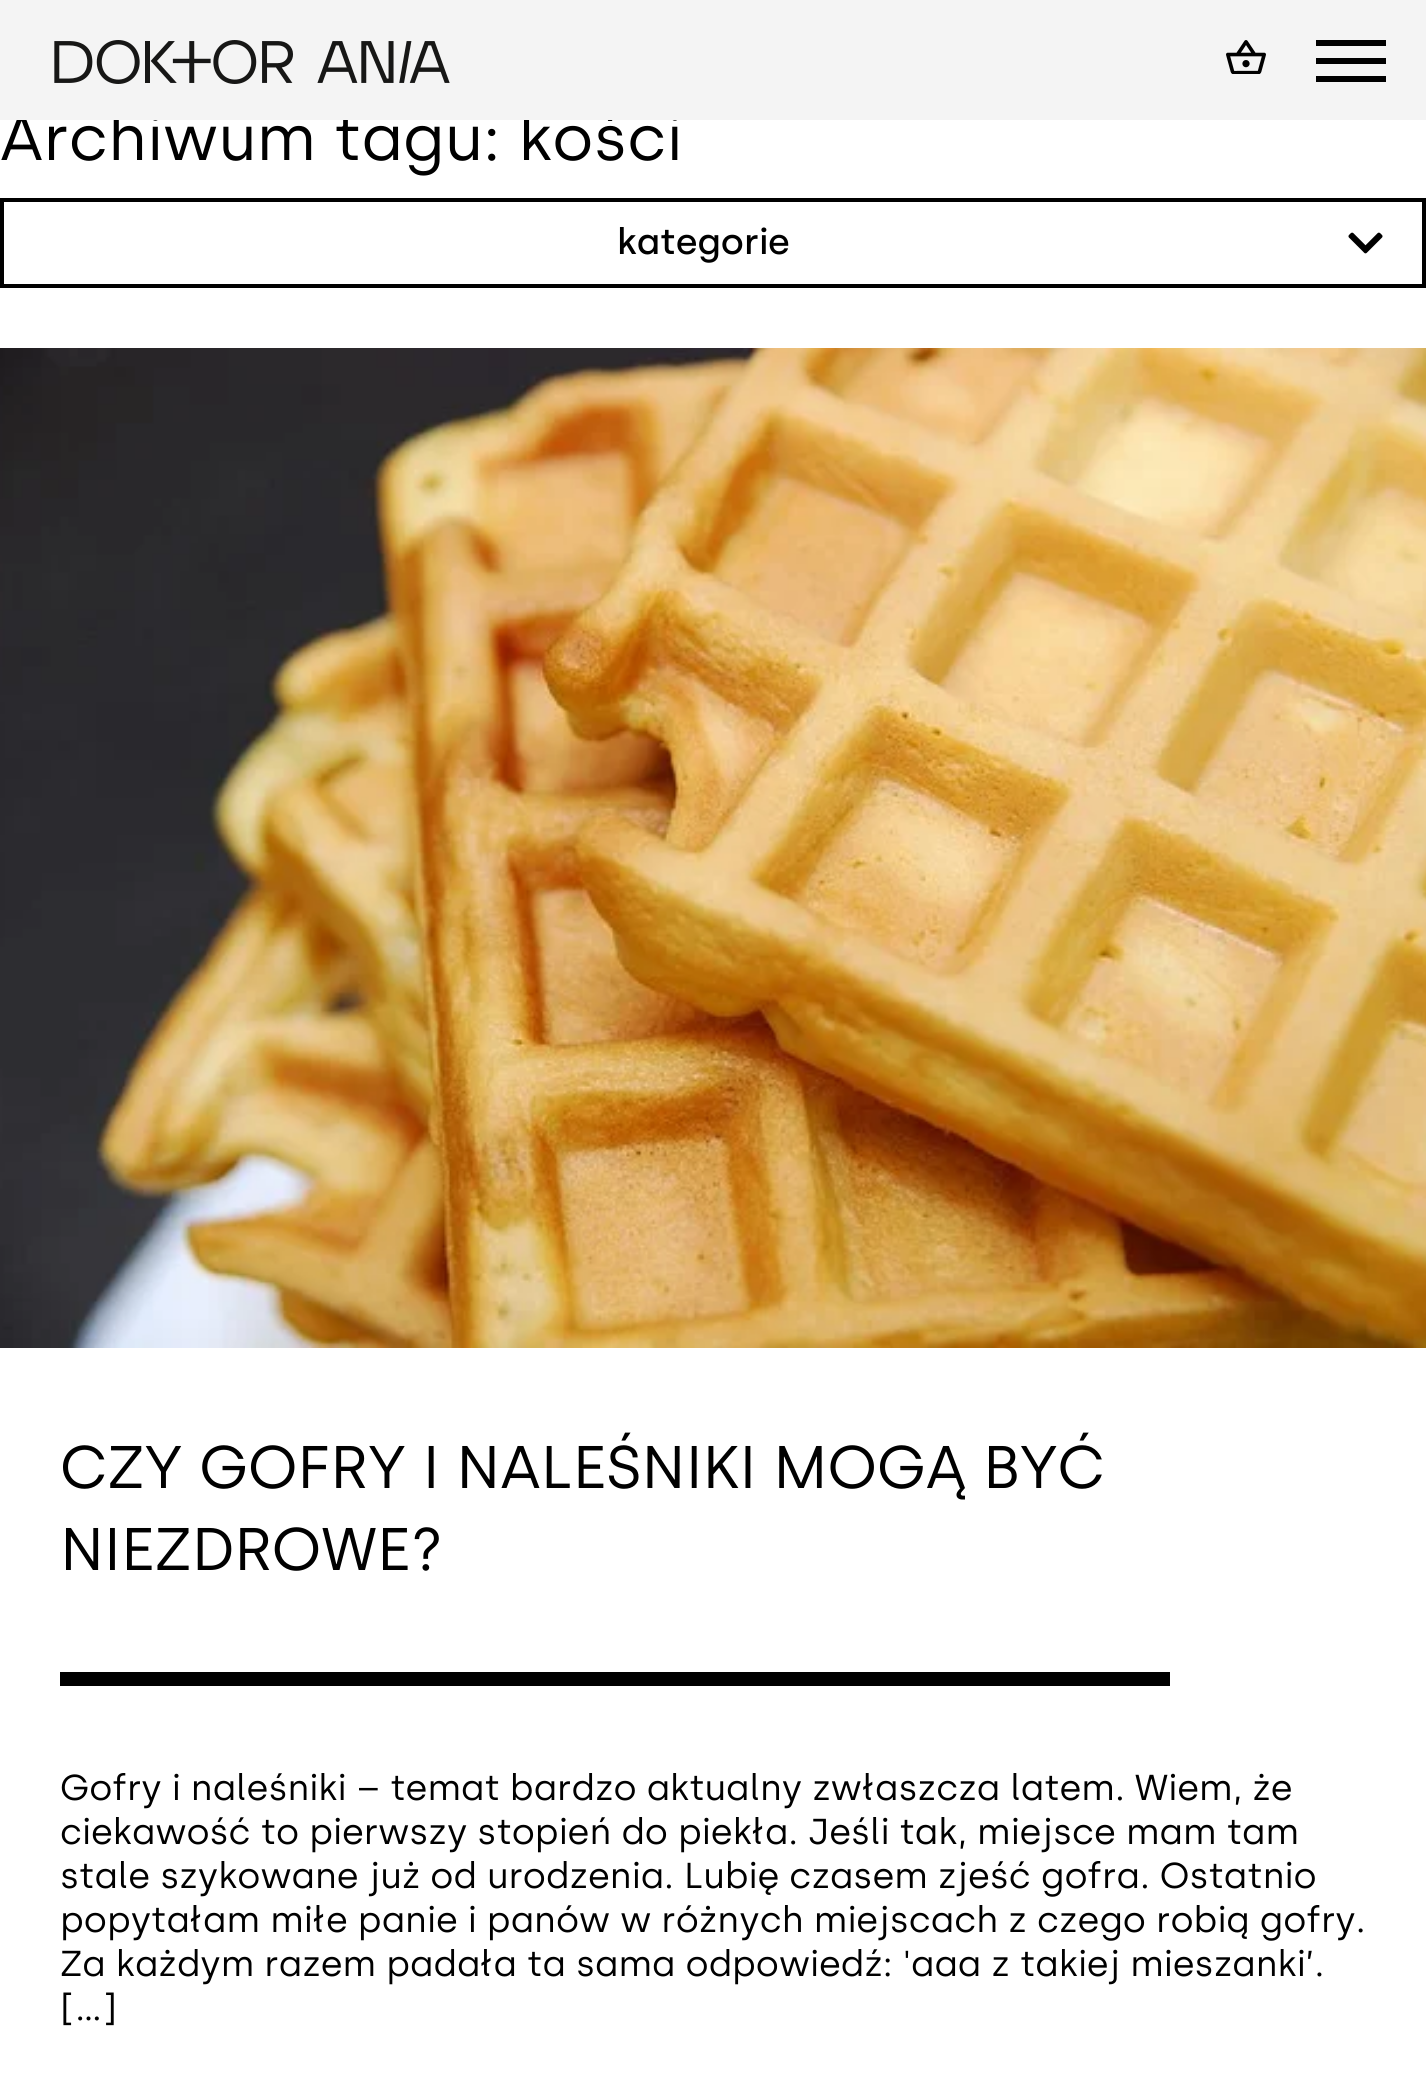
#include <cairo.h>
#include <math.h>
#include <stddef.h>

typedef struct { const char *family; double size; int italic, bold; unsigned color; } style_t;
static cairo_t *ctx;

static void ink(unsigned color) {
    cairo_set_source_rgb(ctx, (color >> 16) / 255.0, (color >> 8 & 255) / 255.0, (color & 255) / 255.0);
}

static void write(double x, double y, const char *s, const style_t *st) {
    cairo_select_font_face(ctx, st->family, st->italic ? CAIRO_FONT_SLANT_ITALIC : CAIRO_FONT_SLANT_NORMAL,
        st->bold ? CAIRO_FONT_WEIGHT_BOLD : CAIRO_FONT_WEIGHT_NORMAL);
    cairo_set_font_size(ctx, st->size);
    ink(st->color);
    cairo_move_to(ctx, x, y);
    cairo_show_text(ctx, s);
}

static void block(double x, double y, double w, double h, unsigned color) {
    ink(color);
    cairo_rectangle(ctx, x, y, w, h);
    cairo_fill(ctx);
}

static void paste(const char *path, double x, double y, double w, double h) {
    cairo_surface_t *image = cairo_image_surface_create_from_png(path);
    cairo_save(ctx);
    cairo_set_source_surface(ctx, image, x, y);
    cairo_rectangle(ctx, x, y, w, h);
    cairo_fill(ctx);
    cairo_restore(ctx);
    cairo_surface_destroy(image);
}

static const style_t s1 = {"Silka", 64, 0, 0, 0x000000};
static const style_t s2 = {"Silka Medium", 36, 0, 0, 0x000000};
static const style_t s3 = {"Silka", 60, 0, 0, 0x000000};
static const style_t s4 = {"Silka", 36, 0, 0, 0x000000};

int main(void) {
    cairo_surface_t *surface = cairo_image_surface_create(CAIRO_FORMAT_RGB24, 1426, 2086);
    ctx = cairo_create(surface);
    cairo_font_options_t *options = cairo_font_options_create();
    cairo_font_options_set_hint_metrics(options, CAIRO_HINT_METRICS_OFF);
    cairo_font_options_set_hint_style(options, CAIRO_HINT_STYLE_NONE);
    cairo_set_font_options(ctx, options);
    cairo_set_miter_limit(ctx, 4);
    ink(0xffffff);
    cairo_paint(ctx);
    write(0, 160, "Archiwum tagu: kości", &s1);
    block(0, 0, 1426, 120, 0xf4f4f4);
    paste("pic1.png", 54, 40, 396, 44);
    paste("pic2.png", 1226, 40, 40, 34);
    block(1316, 40, 70, 6, 0x000000);
    block(1316, 58, 70, 6, 0x000000);
    block(1316, 76, 70, 6, 0x000000);
    cairo_rectangle(ctx, 2, 200, 1422, 86);
    cairo_set_line_width(ctx, 4);
    cairo_stroke(ctx);
    write(617, 254, "kategorie", &s2);
    paste("pic3.png", 1348, 232, 35, 22);
    paste("pic4.png", 0, 348, 1426, 1000);
    write(60, 1488, "CZY GOFRY I NALEŚNIKI MOGĄ BYĆ", &s3);
    write(60, 1570, "NIEZDROWE?", &s3);
    block(60, 1672, 1110, 14, 0x000000);
    write(60, 1800, "Gofry i naleśniki – temat bardzo aktualny zwłaszcza latem. Wiem, że", &s4);
    write(60, 1844, "ciekawość to pierwszy stopień do piekła. Jeśli tak, miejsce mam tam", &s4);
    write(60, 1888, "stale szykowane już od urodzenia. Lubię czasem zjeść gofra. Ostatnio", &s4);
    write(60, 1932, "popytałam miłe panie i panów w różnych miejscach z czego robią gofry.", &s4);
    write(60, 1976, "Za każdym razem padała ta sama odpowiedź: 'aaa z takiej mieszanki’.", &s4);
    write(60, 2020, "[…]", &s4);
    cairo_surface_write_to_png(surface, "screenshot.png");
    cairo_font_options_destroy(options);
    cairo_destroy(ctx);
    cairo_surface_destroy(surface);
    return 0;
}
